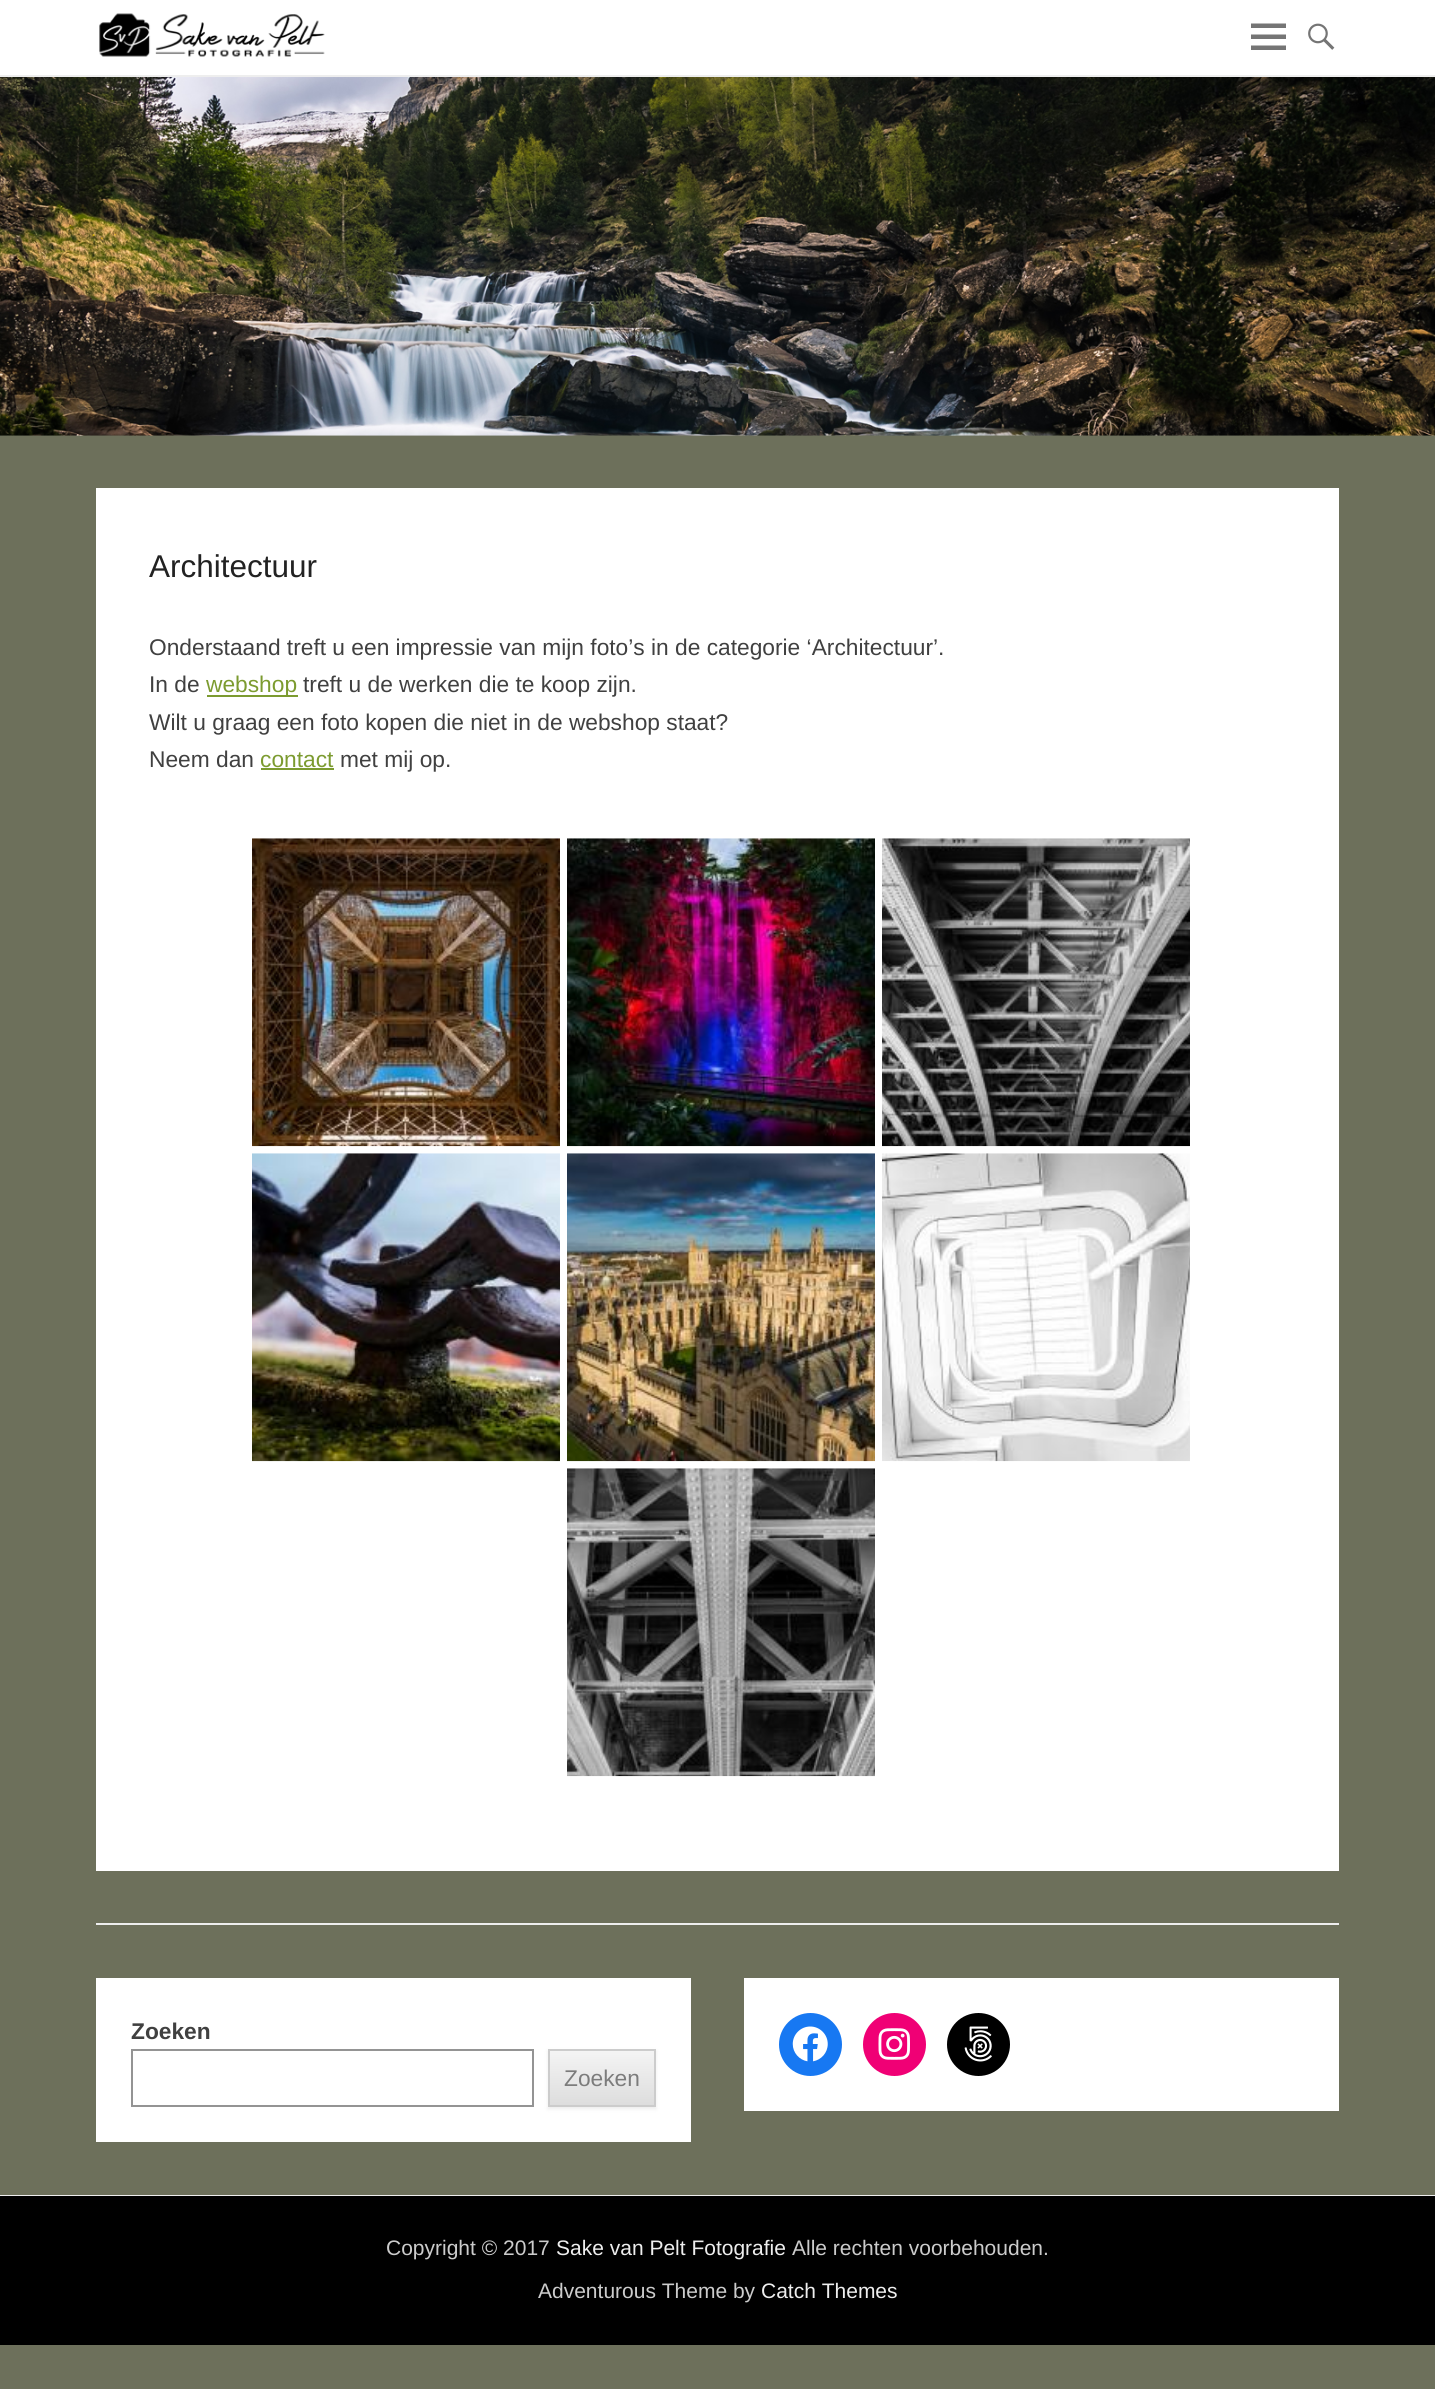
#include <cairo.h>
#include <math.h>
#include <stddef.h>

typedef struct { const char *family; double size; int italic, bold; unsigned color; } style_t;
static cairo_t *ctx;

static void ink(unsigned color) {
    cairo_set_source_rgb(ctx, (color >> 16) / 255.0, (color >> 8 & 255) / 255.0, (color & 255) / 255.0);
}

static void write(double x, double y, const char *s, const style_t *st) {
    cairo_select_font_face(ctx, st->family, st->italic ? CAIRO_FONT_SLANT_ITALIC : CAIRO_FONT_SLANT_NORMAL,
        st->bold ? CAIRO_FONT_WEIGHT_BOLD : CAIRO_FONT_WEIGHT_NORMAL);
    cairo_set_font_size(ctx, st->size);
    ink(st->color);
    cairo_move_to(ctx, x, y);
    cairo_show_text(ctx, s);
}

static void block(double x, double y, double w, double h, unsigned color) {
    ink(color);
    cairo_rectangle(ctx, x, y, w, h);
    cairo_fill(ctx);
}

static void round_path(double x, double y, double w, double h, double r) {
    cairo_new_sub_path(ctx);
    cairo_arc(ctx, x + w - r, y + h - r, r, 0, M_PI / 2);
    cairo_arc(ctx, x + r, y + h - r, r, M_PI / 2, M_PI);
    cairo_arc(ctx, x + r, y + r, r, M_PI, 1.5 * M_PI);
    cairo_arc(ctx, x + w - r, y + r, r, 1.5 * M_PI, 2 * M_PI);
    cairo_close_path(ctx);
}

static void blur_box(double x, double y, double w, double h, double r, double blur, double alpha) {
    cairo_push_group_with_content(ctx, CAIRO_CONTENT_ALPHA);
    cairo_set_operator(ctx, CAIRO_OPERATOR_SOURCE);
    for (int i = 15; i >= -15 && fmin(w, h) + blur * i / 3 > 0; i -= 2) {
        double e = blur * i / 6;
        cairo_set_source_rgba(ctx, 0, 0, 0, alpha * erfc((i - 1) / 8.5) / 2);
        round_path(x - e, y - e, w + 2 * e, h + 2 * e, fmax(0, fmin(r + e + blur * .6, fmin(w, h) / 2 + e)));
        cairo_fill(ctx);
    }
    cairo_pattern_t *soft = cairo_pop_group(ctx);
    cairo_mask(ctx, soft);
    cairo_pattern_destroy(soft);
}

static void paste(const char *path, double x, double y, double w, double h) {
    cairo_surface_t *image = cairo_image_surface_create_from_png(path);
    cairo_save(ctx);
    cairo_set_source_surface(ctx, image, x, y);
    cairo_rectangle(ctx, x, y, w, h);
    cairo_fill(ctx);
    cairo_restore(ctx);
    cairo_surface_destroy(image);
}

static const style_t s1 = {"Liberation Sans", 31.5, 0, 0, 0x222222};
static const style_t s2 = {"Liberation Sans", 22.75, 0, 0, 0x404040};
static const style_t s3 = {"Liberation Sans", 22.75, 0, 0, 0x7c9b30};
static const style_t s4 = {"Liberation Sans", 22.75, 0, 1, 0x404040};
static const style_t s5 = {"Liberation Sans", 22.75, 0, 0, 0x7c7c7c};
static const style_t s6 = {"Liberation Sans", 21, 0, 0, 0xcccccc};
static const style_t s7 = {"Liberation Sans", 21, 0, 0, 0xeeeeee};

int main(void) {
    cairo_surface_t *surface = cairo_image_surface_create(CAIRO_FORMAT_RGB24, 1435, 2389);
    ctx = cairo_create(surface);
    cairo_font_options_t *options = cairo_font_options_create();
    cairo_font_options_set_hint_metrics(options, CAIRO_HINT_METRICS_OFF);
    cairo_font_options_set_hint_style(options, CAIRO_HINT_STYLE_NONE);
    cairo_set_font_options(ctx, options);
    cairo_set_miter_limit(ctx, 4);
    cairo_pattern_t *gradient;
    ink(0x6d705b);
    cairo_paint(ctx);
    block(0, 0, 1435, 75, 0xffffff);
    block(0, 75, 1435, 2, 0xeeeeee);
    paste("pic1.png", 99, 13, 226, 44);
    ink(0x757575);
    cairo_new_path(ctx);
    cairo_move_to(ctx, 1251, 50);
    cairo_line_to(ctx, 1251, 45.5);
    cairo_line_to(ctx, 1286, 45.5);
    cairo_line_to(ctx, 1286, 50);
    cairo_close_path(ctx);
    cairo_move_to(ctx, 1251, 23.5);
    cairo_line_to(ctx, 1286, 23.5);
    cairo_line_to(ctx, 1286, 28);
    cairo_line_to(ctx, 1251, 28);
    cairo_close_path(ctx);
    cairo_move_to(ctx, 1251, 39);
    cairo_line_to(ctx, 1251, 34.5);
    cairo_line_to(ctx, 1286, 34.5);
    cairo_line_to(ctx, 1286, 39);
    cairo_close_path(ctx);
    cairo_fill(ctx);
    paste("pic2.png", 1308, 23, 27, 27);
    paste("pic3.png", 0, 77, 1435, 359);
    block(96, 1923, 1243, 2, 0xeeeeee);
    block(96, 488, 1243, 1383, 0xffffff);
    write(149, 577, "Architectuur", &s1);
    write(149, 655, "Onderstaand treft u een impressie van mijn foto’s in de categorie ‘Architectuur’.", &s2);
    write(149, 692, "In de", &s2);
    block(207, 695, 91, 2, 0x7c9b30);
    write(206, 692, "webshop", &s3);
    write(303, 692, "treft u de werken die te koop zijn.", &s2);
    write(149, 730, "Wilt u graag een foto kopen die niet in de webshop staat?", &s2);
    write(149, 767, "Neem dan", &s2);
    write(260, 767, "contact", &s3);
    block(261, 768, 73, 2, 0x7c9b30);
    write(340, 767, "met mij op.", &s2);
    paste("pic4.png", 252, 838, 308, 309);
    paste("pic5.png", 567, 838, 308, 309);
    paste("pic6.png", 882, 838, 308, 309);
    paste("pic7.png", 252, 1153, 308, 309);
    paste("pic8.png", 567, 1153, 308, 309);
    paste("pic9.png", 882, 1153, 308, 309);
    paste("pic10.png", 567, 1468, 308, 309);
    block(96, 1978, 595, 164, 0xffffff);
    write(131, 2039, "Zoeken", &s4);
    cairo_rectangle(ctx, 132, 2050, 401, 56);
    ink(0x949494);
    cairo_stroke(ctx);
    ink(0x404040);
    blur_box(548, 2051, 108, 58, 0, 2, 0.1);
    gradient = cairo_pattern_create_linear(602, 2051, 602, 2105);
    cairo_pattern_add_color_stop_rgba(gradient, 0, 0.957, 0.957, 0.957, 1);
    cairo_pattern_add_color_stop_rgba(gradient, 1, 0.867, 0.867, 0.867, 1);
    cairo_set_source(ctx, gradient);
    cairo_pattern_destroy(gradient);
    cairo_rectangle(ctx, 550, 2052, 104, 53);
    cairo_fill(ctx);
    cairo_rectangle(ctx, 549, 2050, 106, 56);
    ink(0xcccccc);
    cairo_stroke(ctx);
    write(564, 2086, "Zoeken", &s5);
    block(744, 1978, 595, 133, 0xffffff);
    ink(0x1778f2);
    cairo_new_path(ctx);
    cairo_arc(ctx, 810.5, 2044.5, 31.5, 0, 2 * M_PI);
    cairo_fill(ctx);
    paste("pic11.png", 792, 2026, 36, 36);
    ink(0xf00075);
    cairo_arc(ctx, 894.5, 2044.5, 31.5, 0, 2 * M_PI);
    cairo_fill(ctx);
    paste("pic12.png", 878, 2028, 32, 32);
    ink(0x000000);
    cairo_arc(ctx, 978.5, 2044.5, 31.5, 0, 2 * M_PI);
    cairo_fill(ctx);
    paste("pic13.png", 964, 2026, 28, 36);
    block(0, 2195, 1435, 1, 0xeeeeee);
    block(0, 2196, 1435, 149, 0x000000);
    write(386, 2255, "Copyright © 2017", &s6);
    write(556, 2255, "Sake van Pelt Fotografie", &s7);
    write(792, 2255, "Alle rechten voorbehouden.", &s6);
    write(538, 2298, "Adventurous Theme by", &s6);
    write(761, 2298, "Catch Themes", &s7);
    cairo_surface_write_to_png(surface, "screenshot.png");
    cairo_font_options_destroy(options);
    cairo_destroy(ctx);
    cairo_surface_destroy(surface);
    return 0;
}
